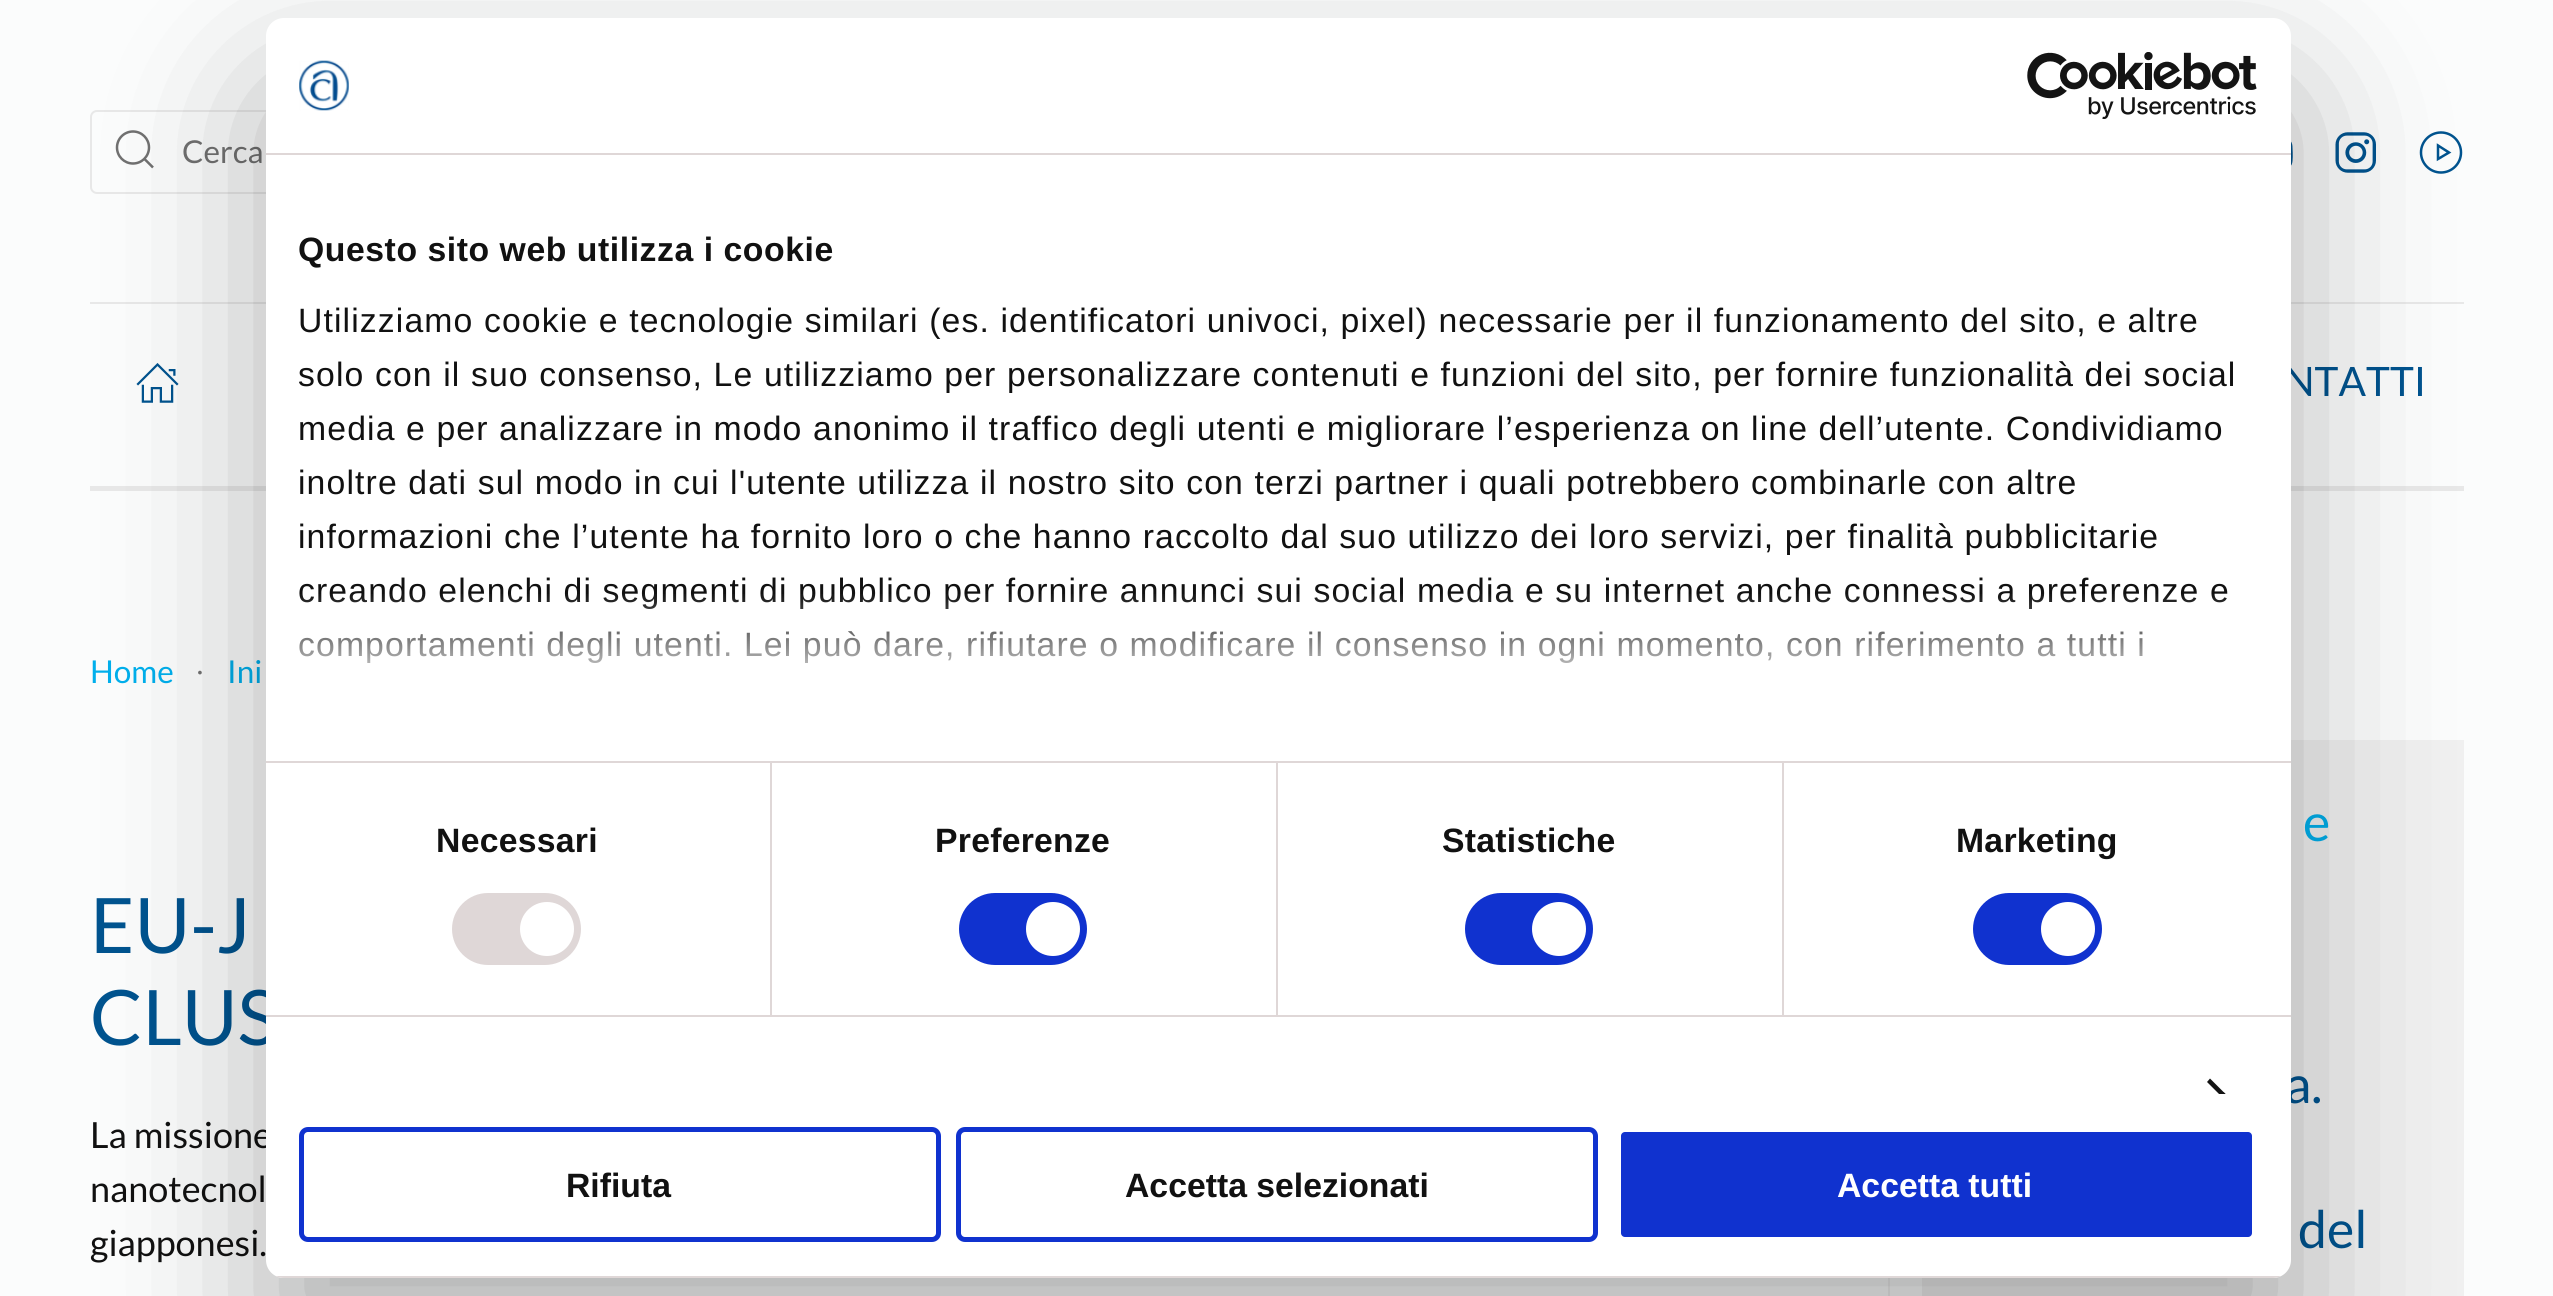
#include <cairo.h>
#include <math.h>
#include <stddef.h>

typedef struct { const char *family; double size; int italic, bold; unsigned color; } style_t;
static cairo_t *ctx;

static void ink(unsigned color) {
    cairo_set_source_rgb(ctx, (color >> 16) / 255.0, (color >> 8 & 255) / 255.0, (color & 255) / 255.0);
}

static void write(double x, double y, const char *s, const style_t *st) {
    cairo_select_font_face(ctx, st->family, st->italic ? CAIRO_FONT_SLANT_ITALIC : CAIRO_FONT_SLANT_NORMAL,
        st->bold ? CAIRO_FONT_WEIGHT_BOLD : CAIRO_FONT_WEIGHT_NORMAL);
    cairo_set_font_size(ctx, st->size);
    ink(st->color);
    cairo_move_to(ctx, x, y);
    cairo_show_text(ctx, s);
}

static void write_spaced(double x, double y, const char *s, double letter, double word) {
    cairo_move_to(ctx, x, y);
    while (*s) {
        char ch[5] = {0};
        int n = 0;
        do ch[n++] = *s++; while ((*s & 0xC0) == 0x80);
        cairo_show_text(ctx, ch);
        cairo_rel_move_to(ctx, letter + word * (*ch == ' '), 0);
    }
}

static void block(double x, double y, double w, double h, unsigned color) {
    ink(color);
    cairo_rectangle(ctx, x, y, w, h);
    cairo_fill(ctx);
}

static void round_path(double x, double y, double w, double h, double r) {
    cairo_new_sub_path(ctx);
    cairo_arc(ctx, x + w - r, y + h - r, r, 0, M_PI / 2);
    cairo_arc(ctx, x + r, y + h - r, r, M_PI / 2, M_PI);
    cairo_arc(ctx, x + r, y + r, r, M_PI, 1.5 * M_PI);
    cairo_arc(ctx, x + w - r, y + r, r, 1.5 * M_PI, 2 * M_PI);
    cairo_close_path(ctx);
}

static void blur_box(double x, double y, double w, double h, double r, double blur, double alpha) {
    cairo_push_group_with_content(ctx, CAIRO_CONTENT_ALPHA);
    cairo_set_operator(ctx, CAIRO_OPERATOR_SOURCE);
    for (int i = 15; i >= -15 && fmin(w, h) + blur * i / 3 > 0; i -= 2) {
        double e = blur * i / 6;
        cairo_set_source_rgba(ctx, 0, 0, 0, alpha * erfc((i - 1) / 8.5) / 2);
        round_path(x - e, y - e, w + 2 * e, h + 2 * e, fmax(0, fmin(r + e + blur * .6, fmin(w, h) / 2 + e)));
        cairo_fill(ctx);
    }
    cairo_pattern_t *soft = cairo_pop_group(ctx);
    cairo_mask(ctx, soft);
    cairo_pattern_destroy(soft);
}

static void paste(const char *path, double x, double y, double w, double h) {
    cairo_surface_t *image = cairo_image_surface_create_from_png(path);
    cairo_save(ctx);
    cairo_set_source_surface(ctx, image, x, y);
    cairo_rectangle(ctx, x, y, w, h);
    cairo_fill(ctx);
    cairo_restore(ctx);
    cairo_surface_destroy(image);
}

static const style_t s1 = {"Lato", 31.5, 0, 0, 0x707070};
static const style_t s2 = {"Lato", 40.5, 0, 0, 0x00538f};
static const style_t s3 = {"Lato", 31.5, 0, 0, 0x00afec};
static const style_t s4 = {"Liberation Serif", 31.5, 0, 0, 0x707070};
static const style_t s5 = {"Lato", 76.5, 0, 0, 0x00538f};
static const style_t s6 = {"Lato", 36, 0, 0, 0x111111};
static const style_t s7 = {"Lato", 52, 0, 0, 0x00afec};
static const style_t s8 = {"Lato", 52, 0, 0, 0x00538f};
static const style_t s9 = {"Liberation Sans", 33.75, 0, 1, 0x111111};
static const style_t s10 = {"Liberation Sans", 33.75, 0, 1, 0xffffff};

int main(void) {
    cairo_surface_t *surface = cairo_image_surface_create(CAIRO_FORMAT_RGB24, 2553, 1296);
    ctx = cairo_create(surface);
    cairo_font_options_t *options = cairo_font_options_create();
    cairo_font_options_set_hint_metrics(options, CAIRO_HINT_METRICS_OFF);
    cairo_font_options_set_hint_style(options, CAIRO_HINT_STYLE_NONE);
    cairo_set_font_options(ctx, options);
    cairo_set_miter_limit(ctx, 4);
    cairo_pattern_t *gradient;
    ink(0xfbfcfc);
    cairo_paint(ctx);
    round_path(91, 111, 538, 82, 6);
    ink(0xe8e8e8);
    cairo_stroke(ctx);
    cairo_arc(ctx, 133, 147.5, 16, 0, 2 * M_PI);
    ink(0x707070);
    cairo_set_line_width(ctx, 2.5);
    cairo_stroke(ctx);
    cairo_new_path(ctx);
    cairo_move_to(ctx, 144, 158.5);
    cairo_line_to(ctx, 153, 167.5);
    cairo_close_path(ctx);
    cairo_stroke(ctx);
    write(182, 163, "Cerca", &s1);
    paste("pic1.png", 2291, 141, 2, 25);
    paste("pic2.png", 2335, 132, 41, 41);
    cairo_new_path(ctx);
    cairo_move_to(ctx, 2438, 145.5);
    cairo_line_to(ctx, 2449, 152.5);
    cairo_line_to(ctx, 2438, 159);
    cairo_close_path(ctx);
    ink(0x00538f);
    cairo_stroke(ctx);
    cairo_arc(ctx, 2441, 152.5, 20, 0, 2 * M_PI);
    cairo_stroke(ctx);
    block(90, 302, 2374, 2, 0xe8e8e8);
    block(90, 486, 2374, 5, 0xe8e8e8);
    paste("pic3.png", 136, 363, 43, 40);
    write(2284, 396, "NTATTI", &s2);
    write(90, 683, "Home", &s3);
    write(196, 683, "∙", &s4);
    write(227, 683, "Ini", &s3);
    write(90, 953, "EU-J", &s5);
    write(90, 1045, "CLUS", &s5);
    write(90, 1148, "La missione", &s6);
    write(90, 1202, "nanotecnol", &s6);
    write(90, 1256, "giapponesi.", &s6);
    block(1922, 740, 542, 556, 0xf0f0f0);
    write(2303, 841, "e", &s7);
    write(2285, 1103, "a.", &s8);
    write(2298, 1248, "del", &s8);
    block(1888, 1278, 2, 18, 0xf0f0f0);
    ink(0x000000);
    blur_box(266, 90, 2025, 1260, 18, 76.5, 0.3);
    ink(0xffffff);
    round_path(266, 18, 2025, 1260, 18);
    cairo_fill(ctx);
    block(266, 153, 2025, 2, 0xdfd7d7);
    paste("pic4.png", 299, 60, 50, 51);
    paste("pic5.png", 2027, 52, 230, 67);
    block(266, 761, 2025, 2, 0xdfd7d7);
    cairo_select_font_face(ctx, "Liberation Sans", CAIRO_FONT_SLANT_NORMAL, CAIRO_FONT_WEIGHT_BOLD);
    cairo_set_font_size(ctx, 33.75);
    ink(0x111111);
    write_spaced(298, 261, "Questo sito web utilizza i cookie", 0.55, 0);
    cairo_select_font_face(ctx, "Liberation Sans", CAIRO_FONT_SLANT_NORMAL, CAIRO_FONT_WEIGHT_NORMAL);
    write_spaced(298, 332, "Utilizziamo cookie e tecnologie similari (es. identificatori univoci, pixel) necessarie per il funzionamento del sito, e altre", 1.12, 0);
    write_spaced(298, 386, "solo con il suo consenso, Le utilizziamo per personalizzare contenuti e funzioni del sito, per fornire funzionalità dei social", 1.12, 0);
    write_spaced(298, 440, "media e per analizzare in modo anonimo il traffico degli utenti e migliorare l’esperienza on line dell’utente. Condividiamo", 1.12, 0);
    write_spaced(298, 494, "inoltre dati sul modo in cui l'utente utilizza il nostro sito con terzi partner i quali potrebbero combinarle con altre", 1.12, 0);
    write_spaced(298, 548, "informazioni che l’utente ha fornito loro o che hanno raccolto dal suo utilizzo dei loro servizi, per finalità pubblicitarie", 1.12, 0);
    write_spaced(298, 602, "creando elenchi di segmenti di pubblico per fornire annunci sui social media e su internet anche connessi a preferenze e", 1.12, 0);
    write_spaced(298, 656, "comportamenti degli utenti. Lei può dare, rifiutare o modificare il consenso in ogni momento, con riferimento a tutti i", 1.12, 0);
    gradient = cairo_pattern_create_linear(1263, 761, 1263, 592);
    cairo_pattern_add_color_stop_rgba(gradient, 0, 1, 1, 1, 1);
    cairo_pattern_add_color_stop_rgba(gradient, 0.5, 1, 1, 1, 0.8);
    cairo_pattern_add_color_stop_rgba(gradient, 1, 1, 1, 1, 0);
    cairo_set_source(ctx, gradient);
    cairo_pattern_destroy(gradient);
    cairo_rectangle(ctx, 299, 594, 1928, 69);
    cairo_fill(ctx);
    block(266, 1015, 2025, 2, 0xdfd7d7);
    block(770, 763, 2, 252, 0xdfd7d7);
    cairo_select_font_face(ctx, "Liberation Sans", CAIRO_FONT_SLANT_NORMAL, CAIRO_FONT_WEIGHT_BOLD);
    ink(0x111111);
    write_spaced(436, 852, "Necessari", 0.25, 0);
    ink(0xdfd7d7);
    round_path(452, 893, 129, 72, 36);
    cairo_fill(ctx);
    ink(0xffffff);
    cairo_arc(ctx, 547, 929, 27, 0, 2 * M_PI);
    cairo_fill(ctx);
    block(1276, 763, 2, 252, 0xdfd7d7);
    ink(0x111111);
    write_spaced(935, 852, "Preferenze", 0.25, 0);
    ink(0x1032cf);
    round_path(959, 893, 128, 72, 36);
    cairo_fill(ctx);
    ink(0xffffff);
    cairo_arc(ctx, 1053, 929, 27, 0, 2 * M_PI);
    cairo_fill(ctx);
    block(1782, 763, 2, 252, 0xdfd7d7);
    ink(0x111111);
    write_spaced(1442, 852, "Statistiche", 0.25, 0);
    ink(0x1032cf);
    round_path(1465, 893, 128, 72, 36);
    cairo_fill(ctx);
    ink(0xffffff);
    cairo_arc(ctx, 1559, 929, 27, 0, 2 * M_PI);
    cairo_fill(ctx);
    ink(0x111111);
    write_spaced(1956, 852, "Marketing", 0.25, 0);
    ink(0x1032cf);
    round_path(1973, 893, 129, 72, 36);
    cairo_fill(ctx);
    ink(0xffffff);
    cairo_arc(ctx, 2068, 929, 27, 0, 2 * M_PI);
    cairo_fill(ctx);
    cairo_save(ctx);
    cairo_rectangle(ctx, 266, 155, 2025, 939);
    cairo_clip(ctx);
    ink(0x141414);
    cairo_new_path(ctx);
    cairo_move_to(ctx, 2210, 1078.5);
    cairo_line_to(ctx, 2226.5, 1095);
    cairo_line_to(ctx, 2223.5, 1098.5);
    cairo_line_to(ctx, 2207, 1082);
    cairo_close_path(ctx);
    cairo_fill(ctx);
    cairo_new_path(ctx);
    cairo_move_to(ctx, 2223.5, 1092);
    cairo_line_to(ctx, 2226.5, 1095);
    cairo_line_to(ctx, 2210, 1112);
    cairo_line_to(ctx, 2207, 1108.5);
    cairo_close_path(ctx);
    cairo_fill(ctx);
    cairo_restore(ctx);
    cairo_save(ctx);
    round_path(266, 18, 2025, 1260, 18);
    cairo_clip(ctx);
    block(276, 1276, 2005, 2, 0xdfd7d7);
    cairo_restore(ctx);
    round_path(301.5, 1129.5, 637, 110, 6.5);
    ink(0x1032cf);
    cairo_set_line_width(ctx, 5);
    cairo_stroke(ctx);
    write(566, 1197, "Rifiuta", &s9);
    round_path(958.5, 1129.5, 637, 110, 6.5);
    ink(0x1032cf);
    cairo_stroke(ctx);
    write(1125, 1197, "Accetta selezionati", &s9);
    ink(0x1032cf);
    round_path(1618.5, 1129.5, 636, 110, 6.5);
    cairo_fill_preserve(ctx);
    ink(0xffffff);
    cairo_stroke(ctx);
    write(1837, 1197, "Accetta tutti", &s10);
    cairo_surface_write_to_png(surface, "screenshot.png");
    cairo_font_options_destroy(options);
    cairo_destroy(ctx);
    cairo_surface_destroy(surface);
    return 0;
}
